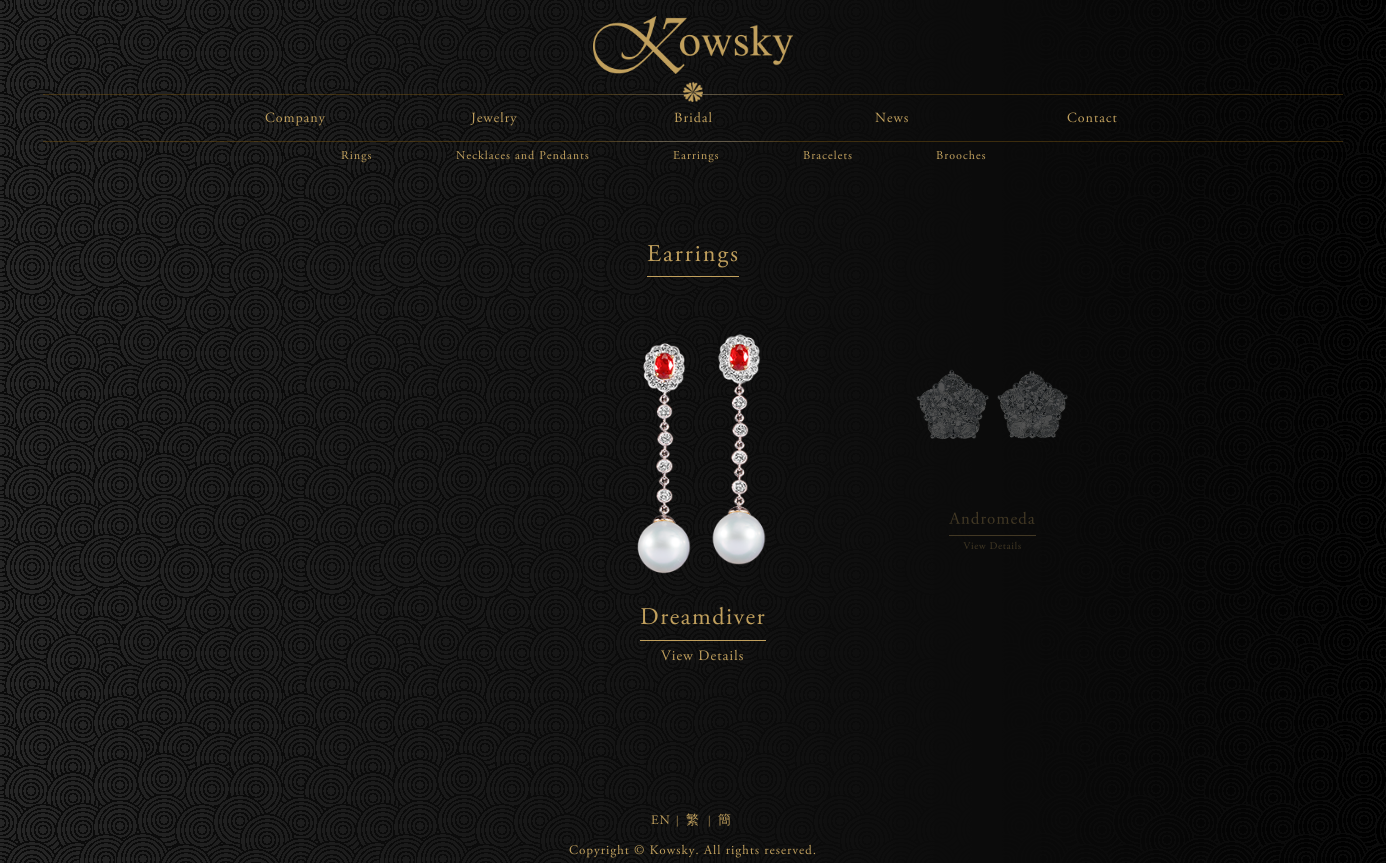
#include <cairo.h>
#include <math.h>
#include <stddef.h>

typedef struct { const char *family; double size; int italic, bold; unsigned color; } style_t;
static cairo_t *ctx;

static void ink(unsigned color) {
    cairo_set_source_rgb(ctx, (color >> 16) / 255.0, (color >> 8 & 255) / 255.0, (color & 255) / 255.0);
}

static void write(double x, double y, const char *s, const style_t *st) {
    cairo_select_font_face(ctx, st->family, st->italic ? CAIRO_FONT_SLANT_ITALIC : CAIRO_FONT_SLANT_NORMAL,
        st->bold ? CAIRO_FONT_WEIGHT_BOLD : CAIRO_FONT_WEIGHT_NORMAL);
    cairo_set_font_size(ctx, st->size);
    ink(st->color);
    cairo_move_to(ctx, x, y);
    cairo_show_text(ctx, s);
}

static void write_spaced(double x, double y, const char *s, double letter, double word) {
    cairo_move_to(ctx, x, y);
    while (*s) {
        char ch[5] = {0};
        int n = 0;
        do ch[n++] = *s++; while ((*s & 0xC0) == 0x80);
        cairo_show_text(ctx, ch);
        cairo_rel_move_to(ctx, letter + word * (*ch == ' '), 0);
    }
}

static void block(double x, double y, double w, double h, unsigned color) {
    ink(color);
    cairo_rectangle(ctx, x, y, w, h);
    cairo_fill(ctx);
}

static void paste(const char *path, double x, double y, double w, double h) {
    cairo_surface_t *image = cairo_image_surface_create_from_png(path);
    cairo_save(ctx);
    cairo_set_source_surface(ctx, image, x, y);
    cairo_rectangle(ctx, x, y, w, h);
    cairo_fill(ctx);
    cairo_restore(ctx);
    cairo_surface_destroy(image);
}

static const style_t s1 = {"Liberation Serif", 12, 0, 0, 0xc1a05d};

int main(void) {
    cairo_surface_t *surface = cairo_image_surface_create(CAIRO_FORMAT_RGB24, 1386, 863);
    ctx = cairo_create(surface);
    cairo_font_options_t *options = cairo_font_options_create();
    cairo_font_options_set_hint_metrics(options, CAIRO_HINT_METRICS_OFF);
    cairo_font_options_set_hint_style(options, CAIRO_HINT_STYLE_NONE);
    cairo_set_font_options(ctx, options);
    cairo_set_miter_limit(ctx, 4);
    ink(0xffffff);
    cairo_paint(ctx);
    paste("pic13.png", 0, 0, 1386, 863);
    paste("pic1.png", 593, 16, 200, 58);
    paste("pic2.png", 683, 82, 20, 20);
    paste("pic3.png", 265, 112, 60, 14);
    paste("pic4.png", 470, 112, 47, 14);
    paste("pic5.png", 341, 151, 30, 12);
    paste("pic6.png", 456, 150, 133, 10);
    paste("pic7.png", 673, 151, 46, 12);
    paste("pic8.png", 803, 150, 49, 10);
    paste("pic9.png", 936, 150, 50, 10);
    paste("pic10.png", 674, 112, 38, 11);
    paste("pic11.png", 875, 112, 33, 11);
    paste("pic12.png", 1067, 112, 50, 11);
    block(647, 276, 92, 1, 0xc1a05d);
    paste("pic14.png", 647, 245, 91, 23);
    paste("pic15.png", 637, 334, 129, 240);
    block(640, 640, 126, 1, 0xc1a05d);
    paste("pic16.png", 641, 606, 124, 19);
    paste("pic17.png", 661, 649, 82, 12);
    paste("pic18.png", 916, 369, 152, 73);
    block(949, 535, 87, 1, 0x423824);
    paste("pic19.png", 949, 511, 86, 13);
    paste("pic20.png", 963, 541, 58, 8);
    paste("pic21.png", 651, 815, 19, 10);
    write(676, 824, "|", &s1);
    cairo_select_font_face(ctx, "WenQuanYi Zen Hei Medium", CAIRO_FONT_SLANT_NORMAL, CAIRO_FONT_WEIGHT_NORMAL);
    cairo_set_font_size(ctx, 13);
    write_spaced(686, 824, "繁", 1, 0);
    write(708, 824, "|", &s1);
    cairo_select_font_face(ctx, "WenQuanYi Zen Hei Medium", CAIRO_FONT_SLANT_NORMAL, CAIRO_FONT_WEIGHT_NORMAL);
    cairo_set_font_size(ctx, 13);
    write_spaced(718, 824, "簡", 1, 0);
    paste("pic22.png", 569, 844, 247, 14);
    cairo_surface_write_to_png(surface, "screenshot.png");
    cairo_font_options_destroy(options);
    cairo_destroy(ctx);
    cairo_surface_destroy(surface);
    return 0;
}
